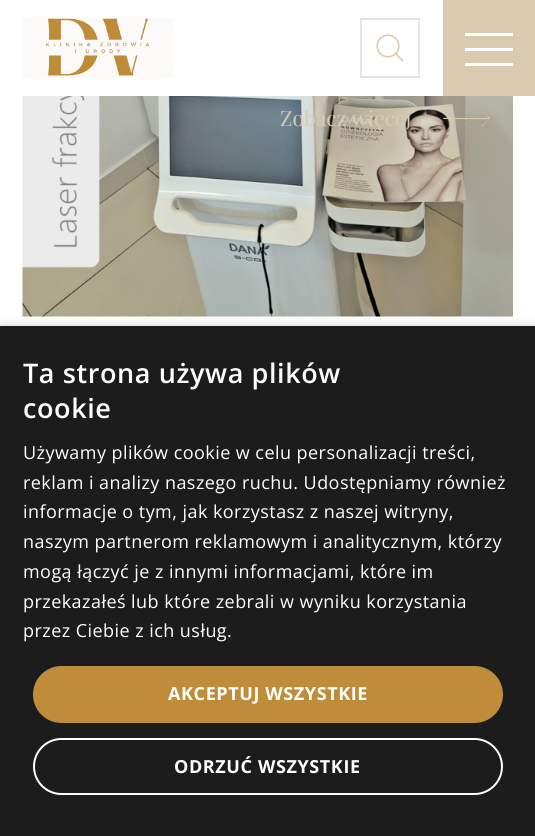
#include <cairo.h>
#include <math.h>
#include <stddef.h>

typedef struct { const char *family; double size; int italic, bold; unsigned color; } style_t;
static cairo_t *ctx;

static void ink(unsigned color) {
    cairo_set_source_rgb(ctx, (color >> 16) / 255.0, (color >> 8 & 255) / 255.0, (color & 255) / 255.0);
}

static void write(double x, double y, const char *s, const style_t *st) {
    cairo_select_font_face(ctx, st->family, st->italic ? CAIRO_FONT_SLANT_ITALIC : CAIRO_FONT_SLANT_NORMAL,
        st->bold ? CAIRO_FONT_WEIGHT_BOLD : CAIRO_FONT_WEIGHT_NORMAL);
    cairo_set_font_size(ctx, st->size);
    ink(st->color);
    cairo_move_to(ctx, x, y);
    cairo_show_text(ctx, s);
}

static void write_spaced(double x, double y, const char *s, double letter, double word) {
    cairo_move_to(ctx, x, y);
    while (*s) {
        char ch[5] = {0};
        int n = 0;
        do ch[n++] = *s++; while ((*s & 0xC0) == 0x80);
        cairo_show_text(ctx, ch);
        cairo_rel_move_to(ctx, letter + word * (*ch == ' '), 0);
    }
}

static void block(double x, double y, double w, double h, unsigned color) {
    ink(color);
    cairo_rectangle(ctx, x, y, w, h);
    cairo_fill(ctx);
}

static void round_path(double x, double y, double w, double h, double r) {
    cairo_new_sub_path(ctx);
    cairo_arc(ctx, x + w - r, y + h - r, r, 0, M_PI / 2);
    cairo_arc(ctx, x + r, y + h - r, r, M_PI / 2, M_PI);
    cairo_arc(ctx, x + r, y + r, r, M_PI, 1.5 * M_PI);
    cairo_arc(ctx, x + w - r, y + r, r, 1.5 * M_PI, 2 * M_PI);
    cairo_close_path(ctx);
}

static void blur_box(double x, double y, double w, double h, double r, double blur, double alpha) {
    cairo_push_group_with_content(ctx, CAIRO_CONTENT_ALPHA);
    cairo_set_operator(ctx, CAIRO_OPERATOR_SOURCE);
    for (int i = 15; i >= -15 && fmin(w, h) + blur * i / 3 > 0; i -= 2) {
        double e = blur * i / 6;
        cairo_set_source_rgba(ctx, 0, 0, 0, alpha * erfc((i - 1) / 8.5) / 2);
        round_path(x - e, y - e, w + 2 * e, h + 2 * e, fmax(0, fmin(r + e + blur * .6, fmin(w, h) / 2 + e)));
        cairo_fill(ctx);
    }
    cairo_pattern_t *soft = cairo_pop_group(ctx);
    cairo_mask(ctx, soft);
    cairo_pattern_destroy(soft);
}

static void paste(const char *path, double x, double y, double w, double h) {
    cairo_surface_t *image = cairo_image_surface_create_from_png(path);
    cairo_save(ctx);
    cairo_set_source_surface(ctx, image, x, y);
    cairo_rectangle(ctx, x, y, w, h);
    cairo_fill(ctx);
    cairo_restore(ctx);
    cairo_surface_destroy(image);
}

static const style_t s1 = {"Playfair Display", 21, 0, 0, 0xdacbb0};

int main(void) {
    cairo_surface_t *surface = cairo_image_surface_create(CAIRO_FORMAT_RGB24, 535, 836);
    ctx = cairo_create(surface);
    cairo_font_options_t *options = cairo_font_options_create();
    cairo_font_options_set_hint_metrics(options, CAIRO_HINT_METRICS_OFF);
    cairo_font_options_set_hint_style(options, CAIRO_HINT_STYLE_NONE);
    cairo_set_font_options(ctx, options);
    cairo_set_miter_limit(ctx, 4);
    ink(0xffffff);
    cairo_paint(ctx);
    paste("pic1.png", 22, 18, 151, 60);
    cairo_rectangle(ctx, 361, 19, 58, 58);
    ink(0xe6e6e6);
    cairo_stroke(ctx);
    paste("pic2.png", 376, 34, 28, 28);
    block(443, 0, 92, 96, 0xdacbb0);
    block(465, 33, 48, 3, 0xffffff);
    block(465, 48, 48, 3, 0xffffff);
    block(465, 63, 48, 3, 0xffffff);
    paste("pic3.png", 22, 96, 491, 221);
    write(280, 126, "Zobacz więcej", &s1);
    cairo_new_path(ctx);
    cairo_move_to(ctx, 490, 118);
    cairo_line_to(ctx, 481, 110);
    cairo_line_to(ctx, 489, 118);
    cairo_line_to(ctx, 443, 118);
    cairo_line_to(ctx, 443, 119);
    cairo_line_to(ctx, 489, 119);
    cairo_line_to(ctx, 481, 127);
    cairo_line_to(ctx, 482, 127);
    cairo_close_path(ctx);
    cairo_fill(ctx);
    ink(0x000000);
    blur_box(2, 329, 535, 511, 0, 6, 0.35);
    block(0, 326, 535, 510, 0x1c1c1c);
    cairo_select_font_face(ctx, "Open Sans SemiBold", CAIRO_FONT_SLANT_NORMAL, CAIRO_FONT_WEIGHT_NORMAL);
    cairo_set_font_size(ctx, 27);
    ink(0xffffff);
    write_spaced(23, 383, "Ta strona używa plików", 0.6, 0);
    write_spaced(23, 418, "cookie", 0.6, 0);
    cairo_select_font_face(ctx, "Open Sans", CAIRO_FONT_SLANT_NORMAL, CAIRO_FONT_WEIGHT_NORMAL);
    cairo_set_font_size(ctx, 18);
    write_spaced(23, 459, "Używamy plików cookie w celu personalizacji treści,", 0.45, 0);
    write_spaced(23, 489, "reklam i analizy naszego ruchu. Udostępniamy również", 0.45, 0);
    write_spaced(23, 518, "informacje o tym, jak korzystasz z naszej witryny,", 0.45, 0);
    write_spaced(23, 548, "naszym partnerom reklamowym i analitycznym, którzy", 0.45, 0);
    write_spaced(23, 578, "mogą łączyć je z innymi informacjami, które im", 0.45, 0);
    write_spaced(23, 608, "przekazałeś lub które zebrali w wyniku korzystania", 0.45, 0);
    write_spaced(23, 637, "przez Ciebie z ich usług.", 0.45, 0);
    ink(0xbf8c39);
    round_path(33, 666, 470, 57, 28.5);
    cairo_fill(ctx);
    cairo_select_font_face(ctx, "Open Sans", CAIRO_FONT_SLANT_NORMAL, CAIRO_FONT_WEIGHT_BOLD);
    ink(0xffffff);
    write_spaced(168, 700, "AKCEPTUJ WSZYSTKIE", 0.6, 0);
    round_path(34, 739, 468, 55, 27.5);
    cairo_stroke(ctx);
    write_spaced(174, 773, "ODRZUĆ WSZYSTKIE", 0.6, 0);
    cairo_surface_write_to_png(surface, "screenshot.png");
    cairo_font_options_destroy(options);
    cairo_destroy(ctx);
    cairo_surface_destroy(surface);
    return 0;
}
